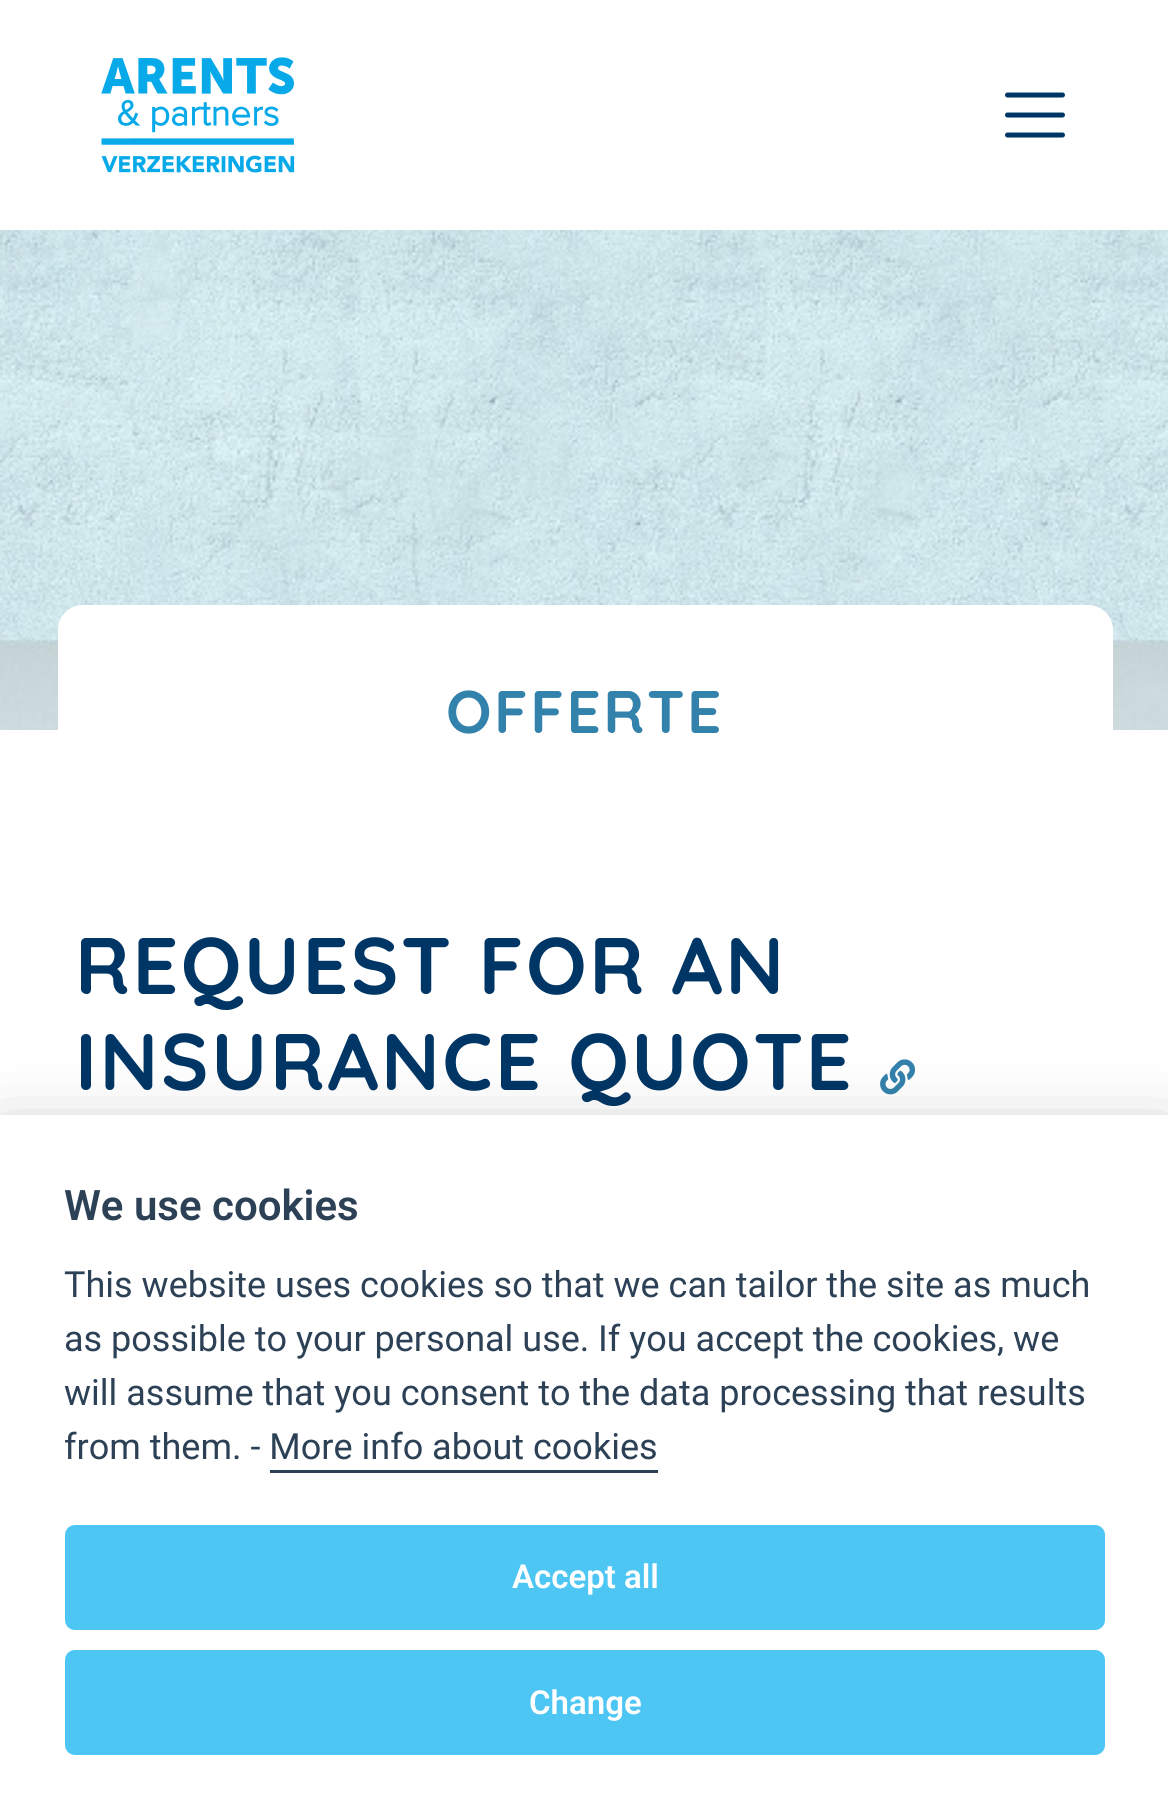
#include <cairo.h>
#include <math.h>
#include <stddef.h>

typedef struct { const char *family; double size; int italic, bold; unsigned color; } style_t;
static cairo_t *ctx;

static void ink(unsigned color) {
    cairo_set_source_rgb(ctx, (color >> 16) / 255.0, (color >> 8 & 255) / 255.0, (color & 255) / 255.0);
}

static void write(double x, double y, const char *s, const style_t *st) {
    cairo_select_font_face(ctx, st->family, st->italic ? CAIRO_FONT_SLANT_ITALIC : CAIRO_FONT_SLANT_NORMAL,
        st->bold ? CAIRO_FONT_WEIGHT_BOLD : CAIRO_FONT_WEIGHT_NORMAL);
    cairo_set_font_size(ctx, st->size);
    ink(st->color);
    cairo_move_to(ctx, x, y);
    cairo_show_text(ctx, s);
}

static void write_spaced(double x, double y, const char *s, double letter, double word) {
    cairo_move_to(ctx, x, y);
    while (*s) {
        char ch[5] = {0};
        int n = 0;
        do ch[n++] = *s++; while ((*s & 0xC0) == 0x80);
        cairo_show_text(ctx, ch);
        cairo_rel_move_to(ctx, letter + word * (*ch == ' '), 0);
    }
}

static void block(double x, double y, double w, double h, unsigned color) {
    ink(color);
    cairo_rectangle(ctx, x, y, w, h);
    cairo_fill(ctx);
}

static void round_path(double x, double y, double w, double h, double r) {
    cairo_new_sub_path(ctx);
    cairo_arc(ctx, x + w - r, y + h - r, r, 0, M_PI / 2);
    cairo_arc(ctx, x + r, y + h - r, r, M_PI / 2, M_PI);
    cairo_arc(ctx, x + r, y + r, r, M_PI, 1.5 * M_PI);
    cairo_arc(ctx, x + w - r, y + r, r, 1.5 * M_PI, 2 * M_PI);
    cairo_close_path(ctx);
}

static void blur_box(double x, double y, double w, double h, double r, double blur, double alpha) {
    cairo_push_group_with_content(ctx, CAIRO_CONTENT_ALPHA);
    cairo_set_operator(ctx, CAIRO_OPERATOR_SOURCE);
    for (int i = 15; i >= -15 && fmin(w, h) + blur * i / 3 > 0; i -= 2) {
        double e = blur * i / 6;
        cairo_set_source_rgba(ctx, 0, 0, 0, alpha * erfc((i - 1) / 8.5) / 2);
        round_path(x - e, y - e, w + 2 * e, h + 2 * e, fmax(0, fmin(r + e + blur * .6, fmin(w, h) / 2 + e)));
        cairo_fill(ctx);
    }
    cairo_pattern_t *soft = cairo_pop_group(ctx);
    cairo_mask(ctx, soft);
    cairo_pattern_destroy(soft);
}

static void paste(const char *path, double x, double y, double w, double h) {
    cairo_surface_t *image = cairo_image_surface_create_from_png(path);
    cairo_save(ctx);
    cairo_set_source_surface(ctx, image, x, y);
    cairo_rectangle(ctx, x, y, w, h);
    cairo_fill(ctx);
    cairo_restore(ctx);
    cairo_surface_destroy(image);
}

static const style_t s1 = {"Roboto SemiBold", 42, 0, 0, 0x2d4156};
static const style_t s2 = {"Roboto", 36, 0, 0, 0x2d4156};
static const style_t s3 = {"Roboto SemiBold", 33, 0, 0, 0xffffff};

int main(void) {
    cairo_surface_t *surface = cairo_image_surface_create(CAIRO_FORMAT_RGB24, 1168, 1820);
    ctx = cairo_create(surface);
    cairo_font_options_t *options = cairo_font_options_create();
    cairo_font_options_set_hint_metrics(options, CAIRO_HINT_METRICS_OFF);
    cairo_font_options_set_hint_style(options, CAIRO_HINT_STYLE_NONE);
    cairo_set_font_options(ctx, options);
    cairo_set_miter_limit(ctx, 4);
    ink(0xffffff);
    cairo_paint(ctx);
    paste("pic1.png", 101, 57, 194, 116);
    cairo_new_path(ctx);
    cairo_move_to(ctx, 1007.5, 95);
    cairo_line_to(ctx, 1062.5, 95);
    cairo_move_to(ctx, 1007.5, 115);
    cairo_line_to(ctx, 1062.5, 115);
    cairo_move_to(ctx, 1007.5, 135);
    cairo_line_to(ctx, 1062.5, 135);
    ink(0x003665);
    cairo_set_line_width(ctx, 5);
    cairo_set_line_cap(ctx, CAIRO_LINE_CAP_ROUND);
    cairo_stroke(ctx);
    paste("pic2.png", 0, 230, 1168, 500);
    ink(0xffffff);
    round_path(58, 605, 1055, 213, 25);
    cairo_fill(ctx);
    cairo_select_font_face(ctx, "Quicksand", CAIRO_FONT_SLANT_NORMAL, CAIRO_FONT_WEIGHT_BOLD);
    cairo_set_font_size(ctx, 60);
    ink(0x3382ac);
    write_spaced(446, 733, "OFFERTE", 2.5, 0);
    cairo_set_font_size(ctx, 80);
    ink(0x003665);
    write_spaced(75, 994, "REQUEST FOR AN", 2.5, 0);
    write_spaced(75, 1090, "INSURANCE QUOTE", 2.5, 0);
    paste("pic3.png", 880, 1059, 36, 36);
    ink(0x020203);
    blur_box(0, 1140, 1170, 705, 0, 37.5, 0.28);
    block(0, 1115, 1168, 705, 0xffffff);
    write(64, 1220, "We use cookies", &s1);
    write(64, 1297, "This website uses cookies so that we can tailor the site as much", &s2);
    write(64, 1351, "as possible to your personal use.", &s2);
    write(598, 1351, "If you accept the cookies, we", &s2);
    write(64, 1405, "will assume that you consent to the data processing that results", &s2);
    write(64, 1459, "from them. - More info about cookies", &s2);
    block(270, 1470, 388, 3, 0x2d4156);
    ink(0x4dc6f4);
    round_path(65, 1525, 1040, 105, 10);
    cairo_fill(ctx);
    write(512, 1588, "Accept all", &s3);
    ink(0x4dc6f4);
    round_path(65, 1650, 1040, 105, 10);
    cairo_fill(ctx);
    write(529, 1714, "Change", &s3);
    cairo_surface_write_to_png(surface, "screenshot.png");
    cairo_font_options_destroy(options);
    cairo_destroy(ctx);
    cairo_surface_destroy(surface);
    return 0;
}
